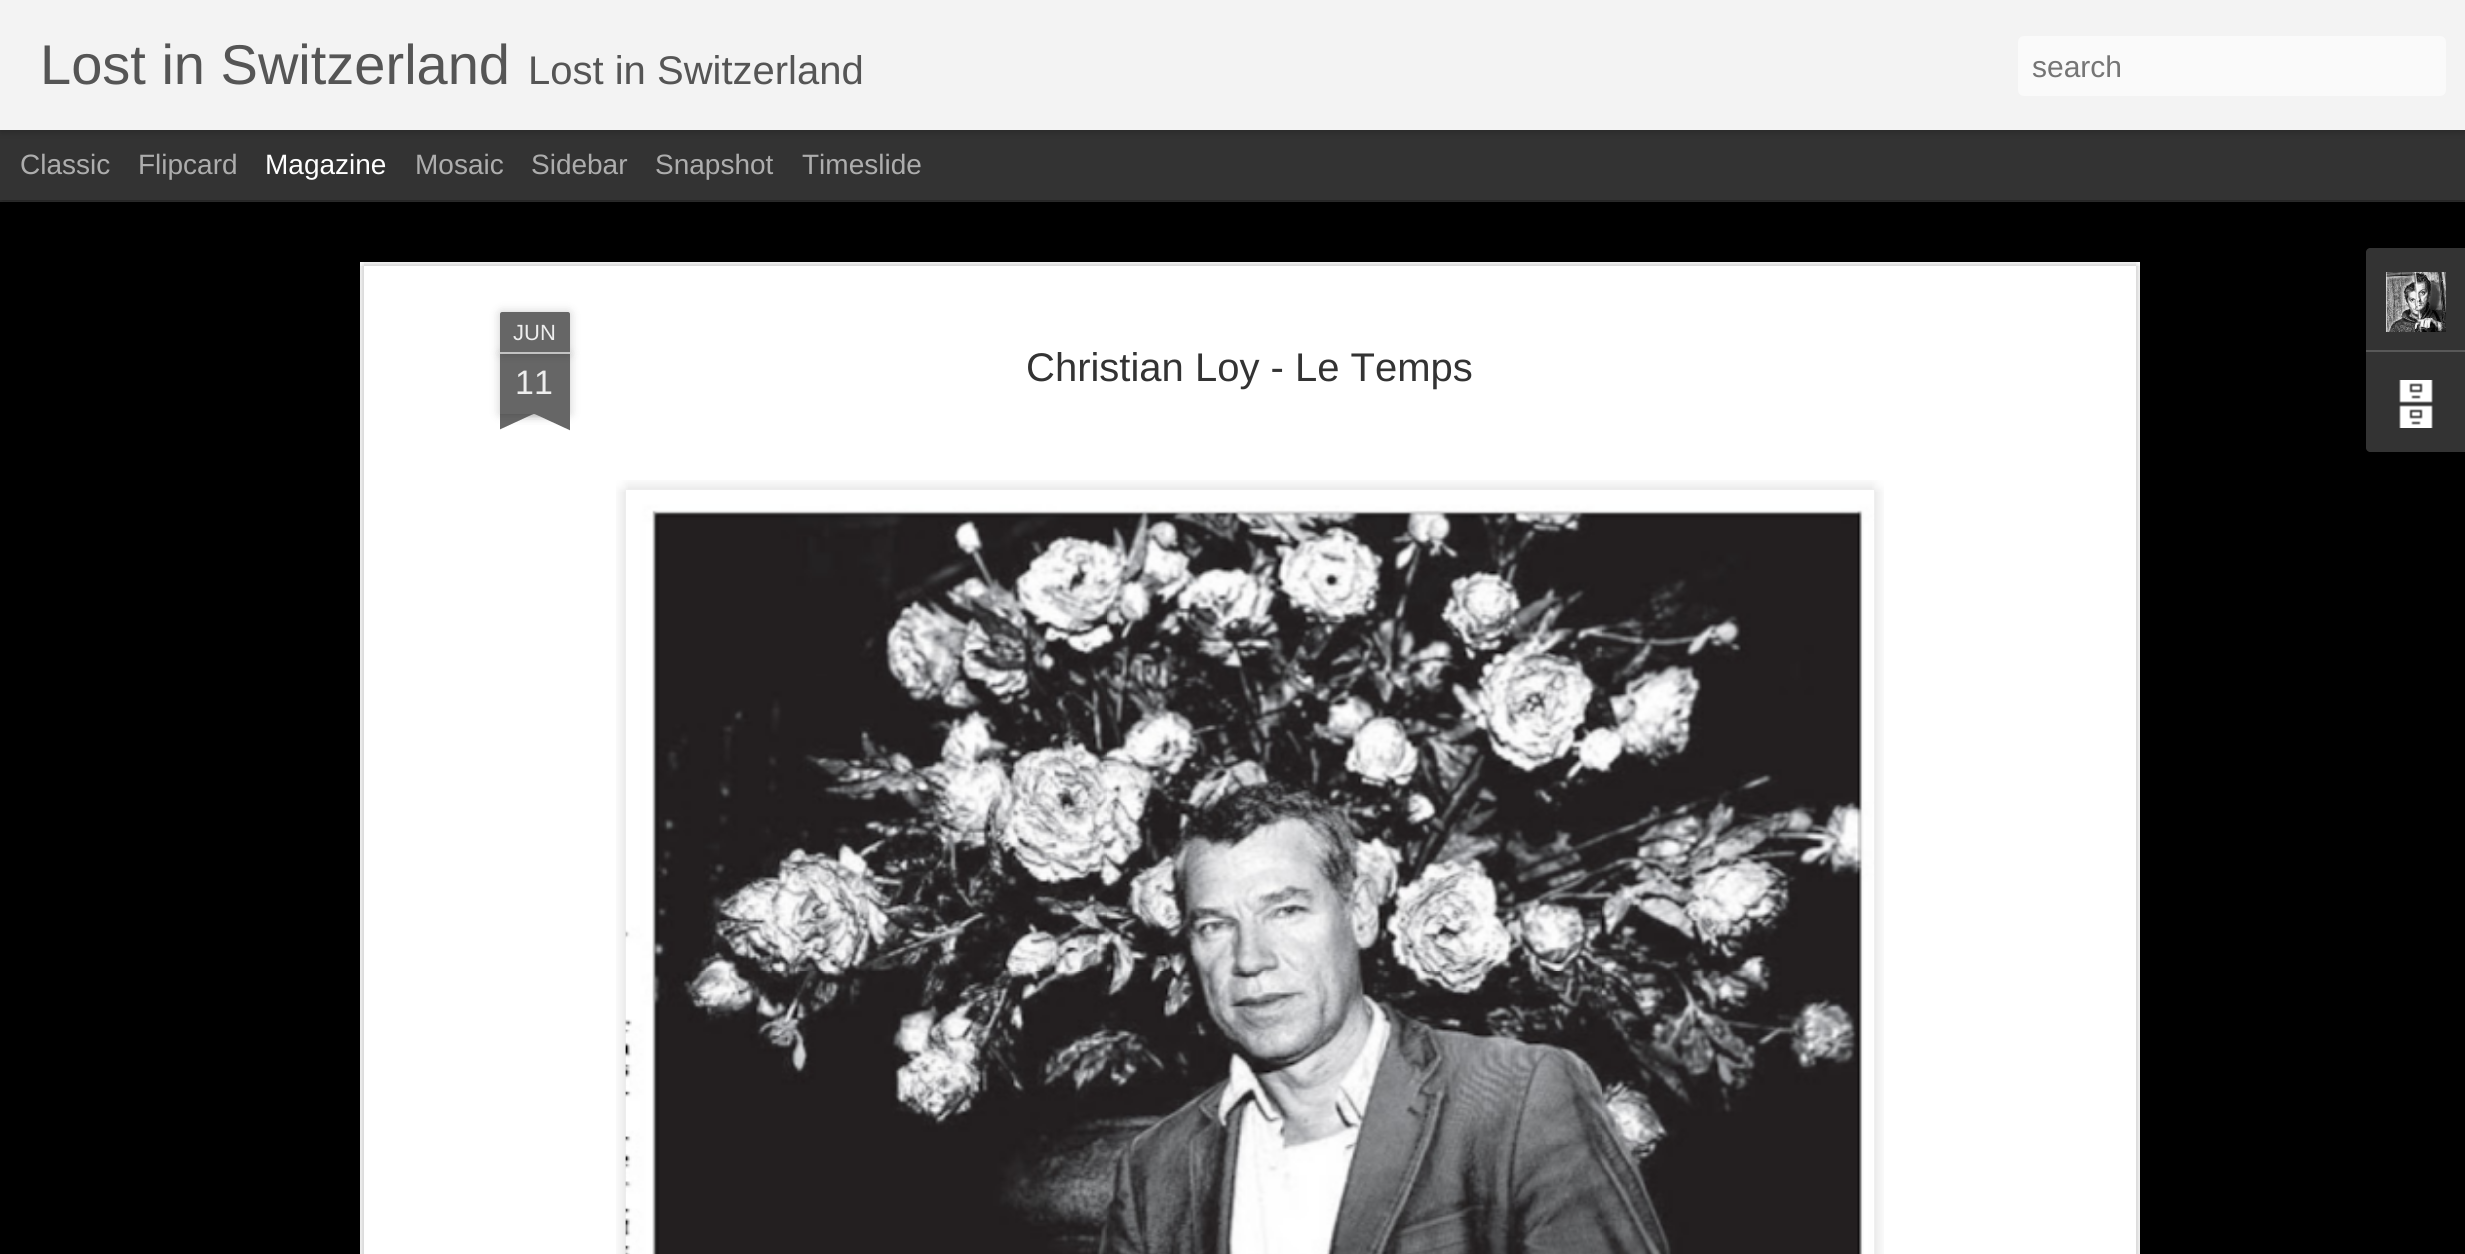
#include <cairo.h>
#include <math.h>
#include <stddef.h>

typedef struct { const char *family; double size; int italic, bold; unsigned color; } style_t;
static cairo_t *ctx;

static void ink(unsigned color) {
    cairo_set_source_rgb(ctx, (color >> 16) / 255.0, (color >> 8 & 255) / 255.0, (color & 255) / 255.0);
}

static void write(double x, double y, const char *s, const style_t *st) {
    cairo_select_font_face(ctx, st->family, st->italic ? CAIRO_FONT_SLANT_ITALIC : CAIRO_FONT_SLANT_NORMAL,
        st->bold ? CAIRO_FONT_WEIGHT_BOLD : CAIRO_FONT_WEIGHT_NORMAL);
    cairo_set_font_size(ctx, st->size);
    ink(st->color);
    cairo_move_to(ctx, x, y);
    cairo_show_text(ctx, s);
}

static void block(double x, double y, double w, double h, unsigned color) {
    ink(color);
    cairo_rectangle(ctx, x, y, w, h);
    cairo_fill(ctx);
}

static void round_path(double x, double y, double w, double h, double r) {
    cairo_new_sub_path(ctx);
    cairo_arc(ctx, x + w - r, y + h - r, r, 0, M_PI / 2);
    cairo_arc(ctx, x + r, y + h - r, r, M_PI / 2, M_PI);
    cairo_arc(ctx, x + r, y + r, r, M_PI, 1.5 * M_PI);
    cairo_arc(ctx, x + w - r, y + r, r, 1.5 * M_PI, 2 * M_PI);
    cairo_close_path(ctx);
}

static void blur_box(double x, double y, double w, double h, double r, double blur, double alpha) {
    cairo_push_group_with_content(ctx, CAIRO_CONTENT_ALPHA);
    cairo_set_operator(ctx, CAIRO_OPERATOR_SOURCE);
    for (int i = 15; i >= -15 && fmin(w, h) + blur * i / 3 > 0; i -= 2) {
        double e = blur * i / 6;
        cairo_set_source_rgba(ctx, 0, 0, 0, alpha * erfc((i - 1) / 8.5) / 2);
        round_path(x - e, y - e, w + 2 * e, h + 2 * e, fmax(0, fmin(r + e + blur * .6, fmin(w, h) / 2 + e)));
        cairo_fill(ctx);
    }
    cairo_pattern_t *soft = cairo_pop_group(ctx);
    cairo_mask(ctx, soft);
    cairo_pattern_destroy(soft);
}

static void paste(const char *path, double x, double y, double w, double h) {
    cairo_surface_t *image = cairo_image_surface_create_from_png(path);
    cairo_save(ctx);
    cairo_set_source_surface(ctx, image, x, y);
    cairo_rectangle(ctx, x, y, w, h);
    cairo_fill(ctx);
    cairo_restore(ctx);
    cairo_surface_destroy(image);
}

static const style_t s1 = {"Liberation Sans", 56, 0, 0, 0x555555};
static const style_t s2 = {"Liberation Sans", 40, 0, 0, 0x555555};
static const style_t s3 = {"Liberation Sans", 30, 0, 0, 0x757575};
static const style_t s4 = {"Liberation Sans", 28, 0, 0, 0xadadad};
static const style_t s5 = {"Liberation Sans", 28, 0, 0, 0xffffff};
static const style_t s6 = {"Liberation Sans", 22, 0, 0, 0xeeeeee};
static const style_t s7 = {"Liberation Sans", 34, 0, 0, 0xeeeeee};
static const style_t s8 = {"Liberation Sans", 40, 0, 0, 0x333333};

int main(void) {
    cairo_surface_t *surface = cairo_image_surface_create(CAIRO_FORMAT_RGB24, 2465, 1254);
    ctx = cairo_create(surface);
    cairo_font_options_t *options = cairo_font_options_create();
    cairo_font_options_set_hint_metrics(options, CAIRO_HINT_METRICS_OFF);
    cairo_font_options_set_hint_style(options, CAIRO_HINT_STYLE_NONE);
    cairo_set_font_options(ctx, options);
    cairo_set_miter_limit(ctx, 4);
    ink(0x333333);
    cairo_paint(ctx);
    block(0, 202, 2465, 1052, 0x000000);
    ink(0x000000);
    blur_box(0, 130, 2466, 70, 0, 8, 0.5);
    block(0, 130, 2465, 70, 0x333333);
    ink(0x000000);
    blur_box(0, 0, 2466, 130, 0, 5, 0.3);
    block(0, 0, 2465, 130, 0xf3f3f3);
    write(40, 84, "Lost in Switzerland", &s1);
    write(528, 84, "Lost in Switzerland", &s2);
    ink(0xfafafa);
    round_path(2018, 36, 428, 60, 6);
    cairo_fill(ctx);
    write(2032, 77, "search", &s3);
    write(20, 174, "Classic", &s4);
    write(138, 174, "Flipcard", &s4);
    write(265, 174, "Magazine", &s5);
    write(415, 174, "Mosaic", &s4);
    write(531, 174, "Sidebar", &s4);
    write(655, 174, "Snapshot", &s4);
    write(802, 174, "Timeslide", &s4);
    block(360, 262, 1780, 992, 0xffffff);
    paste("pic1.png", 360, 262, 1780, 992);
    ink(0x000000);
    blur_box(500, 354, 70, 60, 0, 5, 0.2);
    block(500, 354, 70, 60, 0x666666);
    ink(0x000000);
    blur_box(500, 312, 70, 42, 2, 5, 0.2);
    ink(0x666666);
    cairo_new_path(ctx);
    cairo_move_to(ctx, 502, 312);
    cairo_line_to(ctx, 568, 312);
    cairo_curve_to(ctx, 569, 312, 570, 313, 570, 314);
    cairo_line_to(ctx, 570, 354);
    cairo_line_to(ctx, 500, 354);
    cairo_line_to(ctx, 500, 314);
    cairo_curve_to(ctx, 500, 313, 501, 312, 502, 312);
    cairo_close_path(ctx);
    cairo_fill(ctx);
    block(500, 352, 70, 2, 0xc2c2c2);
    write(513, 340, "JUN", &s6);
    write(515, 394, "11", &s7);
    cairo_save(ctx);
    cairo_rectangle(ctx, 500, 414, 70, 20);
    cairo_clip(ctx);
    ink(0x000000);
    blur_box(482, 394, 100, 20, 0, 5, 0.2);
    cairo_restore(ctx);
    cairo_save(ctx);
    cairo_rectangle(ctx, 500, 414, 70, 20);
    cairo_clip(ctx);
    ink(0x666666);
    cairo_new_path(ctx);
    cairo_move_to(ctx, 481, 416);
    cairo_line_to(ctx, 572, 374);
    cairo_line_to(ctx, 581, 392);
    cairo_line_to(ctx, 490, 434);
    cairo_close_path(ctx);
    cairo_fill(ctx);
    cairo_restore(ctx);
    cairo_save(ctx);
    cairo_rectangle(ctx, 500, 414, 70, 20);
    cairo_clip(ctx);
    ink(0x000000);
    blur_box(488, 394, 100, 20, 0, 5, 0.2);
    cairo_restore(ctx);
    cairo_save(ctx);
    cairo_rectangle(ctx, 500, 414, 70, 20);
    cairo_clip(ctx);
    ink(0x666666);
    cairo_new_path(ctx);
    cairo_move_to(ctx, 496, 374);
    cairo_line_to(ctx, 587, 416);
    cairo_line_to(ctx, 578, 434);
    cairo_line_to(ctx, 487, 392);
    cairo_close_path(ctx);
    cairo_fill(ctx);
    cairo_restore(ctx);
    write(1026, 381, "Christian Loy - Le Temps", &s8);
    paste("pic2.png", 616, 480, 1268, 774);
    paste("pic3.png", 625, 489, 1250, 765);
    cairo_new_path(ctx);
    cairo_move_to(ctx, 2370, 248);
    cairo_line_to(ctx, 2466, 248);
    cairo_line_to(ctx, 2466, 350);
    cairo_line_to(ctx, 2366, 350);
    cairo_line_to(ctx, 2366, 252);
    cairo_curve_to(ctx, 2366, 250, 2368, 248, 2370, 248);
    cairo_close_path(ctx);
    cairo_fill(ctx);
    paste("pic4.png", 2386, 272, 60, 60);
    cairo_new_path(ctx);
    cairo_move_to(ctx, 2366, 350);
    cairo_line_to(ctx, 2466, 350);
    cairo_line_to(ctx, 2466, 452);
    cairo_line_to(ctx, 2370, 452);
    cairo_curve_to(ctx, 2368, 452, 2366, 450, 2366, 448);
    cairo_close_path(ctx);
    cairo_fill(ctx);
    block(2366, 350, 99, 2, 0x585858);
    paste("pic5.png", 2399, 380, 34, 48);
    cairo_surface_write_to_png(surface, "screenshot.png");
    cairo_font_options_destroy(options);
    cairo_destroy(ctx);
    cairo_surface_destroy(surface);
    return 0;
}
